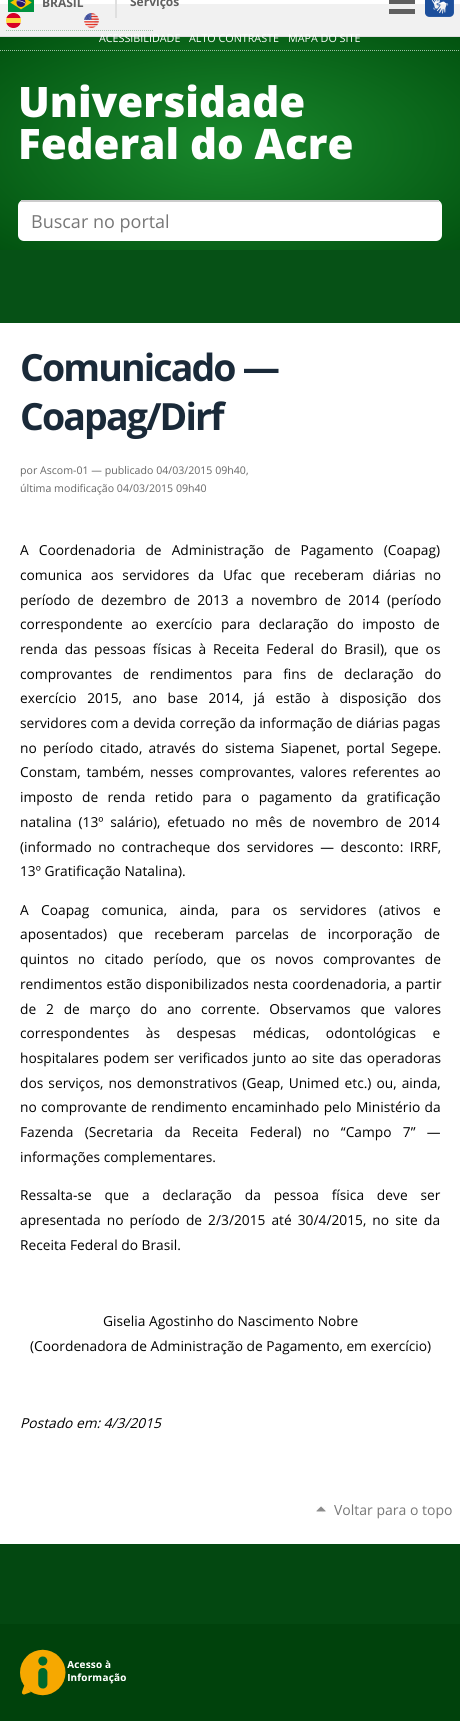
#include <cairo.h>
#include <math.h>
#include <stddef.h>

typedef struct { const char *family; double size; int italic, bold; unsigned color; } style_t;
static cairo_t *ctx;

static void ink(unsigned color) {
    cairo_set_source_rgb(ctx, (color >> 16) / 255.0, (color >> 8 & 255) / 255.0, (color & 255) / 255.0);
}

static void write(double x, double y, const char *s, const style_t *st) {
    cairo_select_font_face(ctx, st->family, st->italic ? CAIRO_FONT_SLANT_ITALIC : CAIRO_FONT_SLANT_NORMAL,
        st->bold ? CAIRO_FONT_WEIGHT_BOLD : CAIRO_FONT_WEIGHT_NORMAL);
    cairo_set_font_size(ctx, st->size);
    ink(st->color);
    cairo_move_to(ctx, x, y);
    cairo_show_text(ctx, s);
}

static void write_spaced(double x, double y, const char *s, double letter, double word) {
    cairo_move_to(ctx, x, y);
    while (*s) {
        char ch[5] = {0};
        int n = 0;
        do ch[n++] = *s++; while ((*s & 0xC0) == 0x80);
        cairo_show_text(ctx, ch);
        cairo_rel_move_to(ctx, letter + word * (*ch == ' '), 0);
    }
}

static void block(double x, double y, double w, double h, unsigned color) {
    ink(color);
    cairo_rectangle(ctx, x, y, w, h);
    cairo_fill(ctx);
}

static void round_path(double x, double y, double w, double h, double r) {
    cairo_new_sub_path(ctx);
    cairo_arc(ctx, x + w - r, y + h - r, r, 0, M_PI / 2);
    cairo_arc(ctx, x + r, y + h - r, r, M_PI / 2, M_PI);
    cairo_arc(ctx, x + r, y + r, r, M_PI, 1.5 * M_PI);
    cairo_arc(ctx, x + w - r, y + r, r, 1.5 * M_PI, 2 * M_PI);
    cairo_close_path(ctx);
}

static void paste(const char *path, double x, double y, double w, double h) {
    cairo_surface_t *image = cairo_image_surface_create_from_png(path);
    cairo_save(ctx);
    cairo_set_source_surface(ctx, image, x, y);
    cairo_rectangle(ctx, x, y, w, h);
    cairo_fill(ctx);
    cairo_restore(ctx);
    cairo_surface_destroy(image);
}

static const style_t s1 = {"Open Sans", 12, 0, 1, 0x606060};
static const style_t s2 = {"Open Sans", 10.75, 0, 0, 0xffffff};
static const style_t s3 = {"Open Sans ExtraBold", 42, 0, 0, 0xffffff};
static const style_t s4 = {"Open Sans", 18, 0, 0, 0x777777};
static const style_t s5 = {"Open Sans", 10.6, 0, 0, 0x666666};
static const style_t s6 = {"Open Sans", 13.75, 0, 0, 0x000000};
static const style_t s7 = {"Open Sans", 13.75, 1, 0, 0x000000};
static const style_t s8 = {"Open Sans", 14, 0, 0, 0x777777};

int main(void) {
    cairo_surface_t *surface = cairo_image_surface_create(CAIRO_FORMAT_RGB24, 460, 1736);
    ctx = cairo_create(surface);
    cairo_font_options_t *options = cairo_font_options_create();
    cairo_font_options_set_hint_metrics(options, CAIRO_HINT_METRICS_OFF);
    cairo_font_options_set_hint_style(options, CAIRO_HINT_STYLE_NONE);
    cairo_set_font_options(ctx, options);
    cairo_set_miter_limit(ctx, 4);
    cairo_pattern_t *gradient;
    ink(0xffffff);
    cairo_paint(ctx);
    block(0, 4, 460, 32, 0xf1f1f1);
    block(0, 36, 460, 1, 0xdfdfdf);
    block(115, 0, 2, 18, 0xdfdfdf);
    paste("pic1.png", 8, 0, 26, 12);
    write(42, 7, "BRASIL", &s1);
    write(130, 6, "Serviços", &s1);
    block(389, 0, 26, 4, 0x606060);
    block(389, 9, 26, 5, 0x606060);
    paste("pic2.png", 425, 0, 29, 17);
    cairo_new_path(ctx);
    cairo_move_to(ctx, 6, 30.5);
    cairo_line_to(ctx, 153, 30.5);
    ink(0x9bc2a3);
    cairo_set_line_width(ctx, 1);
    cairo_set_dash(ctx, (double[]){1, 1}, 2, 0);
    cairo_stroke(ctx);
    paste("pic3.png", 6, 13, 15, 15);
    paste("pic4.png", 84, 13, 15, 15);
    gradient = cairo_pattern_create_radial(0, 0, 0, 0, 0, 1);
    cairo_pattern_set_matrix(gradient, &(cairo_matrix_t){1.0 / 325, 0, 0, 1.0 / 151, -1.0 * 230 / 325, -1.0 * 144 / 151});
    cairo_pattern_add_color_stop_rgba(gradient, 0.01, 0.098, 0.533, 0.173, 1);
    cairo_pattern_add_color_stop_rgba(gradient, 1, 0.008, 0.325, 0.063, 1);
    cairo_set_source(ctx, gradient);
    cairo_pattern_destroy(gradient);
    cairo_rectangle(ctx, 0, 37, 460, 213);
    cairo_fill(ctx);
    cairo_new_path(ctx);
    cairo_move_to(ctx, 0, 50.5);
    cairo_line_to(ctx, 460, 50.5);
    ink(0x9bc2a3);
    cairo_stroke(ctx);
    write(99, 42, "ACESSIBILIDADE", &s2);
    write(189, 42, "ALTO CONTRASTE", &s2);
    write(288, 42, "MAPA DO SITE", &s2);
    write(18, 117, "Universidade", &s3);
    write(18, 159, "Federal do Acre", &s3);
    round_path(18, 200, 424, 41, 6);
    cairo_fill(ctx);
    block(21, 200, 418, 2, 0xcccccc);
    write(31, 228, "Buscar no portal", &s4);
    block(0, 250, 460, 73, 0x065116);
    cairo_select_font_face(ctx, "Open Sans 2", CAIRO_FONT_SLANT_NORMAL, CAIRO_FONT_WEIGHT_BOLD);
    cairo_set_font_size(ctx, 37.5);
    ink(0x1a2a39);
    write_spaced(20, 381, "Comunicado —", -1.9, 0);
    write_spaced(20, 430, "Coapag/Dirf", -1.9, 0);
    write(20, 474, "por Ascom-01 — publicado 04/03/2015 09h40,", &s5);
    write(20, 492, "última modificação 04/03/2015 09h40", &s5);
    cairo_set_font_size(ctx, 13.75);
    ink(0x000000);
    write_spaced(20, 555, "A Coordenadoria de Administração de Pagamento (Coapag)", 0, 6.5);
    write_spaced(20, 580, "comunica aos servidores da Ufac que receberam diárias no", 0, 5.25);
    write_spaced(20, 605, "período de dezembro de 2013 a novembro de 2014 (período", 0, 3.75);
    write_spaced(20, 629, "correspondente ao exercício para declaração do imposto de", 0, 5);
    write_spaced(20, 654, "renda das pessoas físicas à Receita Federal do Brasil), que os", 0, 3.25);
    write_spaced(20, 679, "comprovantes de rendimentos para fins de declaração do", 0, 7.25);
    write_spaced(20, 703, "exercício 2015, ano base 2014, já estão à disposição dos", 0, 7);
    write_spaced(20, 728, "servidores com a devida correção da informação de diárias pagas", 0, 0.1);
    write_spaced(20, 753, "no período citado, através do sistema Siapenet, portal Segepe.", 0, 2.75);
    write_spaced(20, 777, "Constam, também, nesses comprovantes, valores referentes ao", 0, 2.25);
    write_spaced(20, 802, "imposto de renda retido para o pagamento da gratificação", 0, 5.75);
    write_spaced(20, 827, "natalina (13º salário), efetuado no mês de novembro de 2014", 0, 3.25);
    write_spaced(20, 852, "(informado no contracheque dos servidores — desconto: IRRF,", 0, 3);
    write(20, 876, "13º Gratificação Natalina).", &s6);
    write_spaced(20, 915, "A Coapag comunica, ainda, para os servidores (ativos e", 0, 8.75);
    write_spaced(20, 939, "aposentados) que receberam parcelas de incorporação de", 0, 7.75);
    write_spaced(20, 964, "quintos no citado período, que os novos comprovantes de", 0, 6);
    write_spaced(20, 989, "rendimentos estão disponibilizados nesta coordenadoria, a partir", 0, 0.5);
    write_spaced(20, 1014, "de 2 de março do ano corrente. Observamos que valores", 0, 6.25);
    write_spaced(20, 1038, "correspondentes às despesas médicas, odontológicas e", 0, 13);
    write_spaced(20, 1063, "hospitalares podem ser verificados junto ao site das operadoras", 0, 1.25);
    write_spaced(20, 1088, "dos serviços, nos demonstrativos (Geap, Unimed etc.) ou, ainda,", 0, 1.5);
    write_spaced(20, 1112, "no comprovante de rendimento encaminhado pelo Ministério da", 0, 0.75);
    write_spaced(20, 1137, "Fazenda (Secretaria da Receita Federal) no “Campo 7” —", 0, 7.75);
    write(20, 1162, "informações complementares.", &s6);
    write_spaced(20, 1200, "Ressalta-se que a declaração da pessoa física deve ser", 0, 9.25);
    write_spaced(20, 1225, "apresentada no período de 2/3/2015 até 30/4/2015, no site", 0, 2.5);
    write(424, 1225, "da", &s6);
    write(20, 1250, "Receita Federal do Brasil.", &s6);
    write(103, 1326, "Giselia Agostinho do Nascimento Nobre", &s6);
    write(30, 1351, "(Coordenadora de Administração de Pagamento, em exercício)", &s6);
    write(20, 1428, "Postado em: 4/3/2015", &s7);
    paste("pic5.png", 316, 1506, 10, 7);
    write(334, 1515, "Voltar para o topo", &s8);
    block(0, 1544, 460, 80, 0x034811);
    block(0, 1624, 460, 97, 0x00420c);
    paste("pic6.png", 20, 1649, 106, 47);
    cairo_surface_write_to_png(surface, "screenshot.png");
    cairo_font_options_destroy(options);
    cairo_destroy(ctx);
    cairo_surface_destroy(surface);
    return 0;
}
